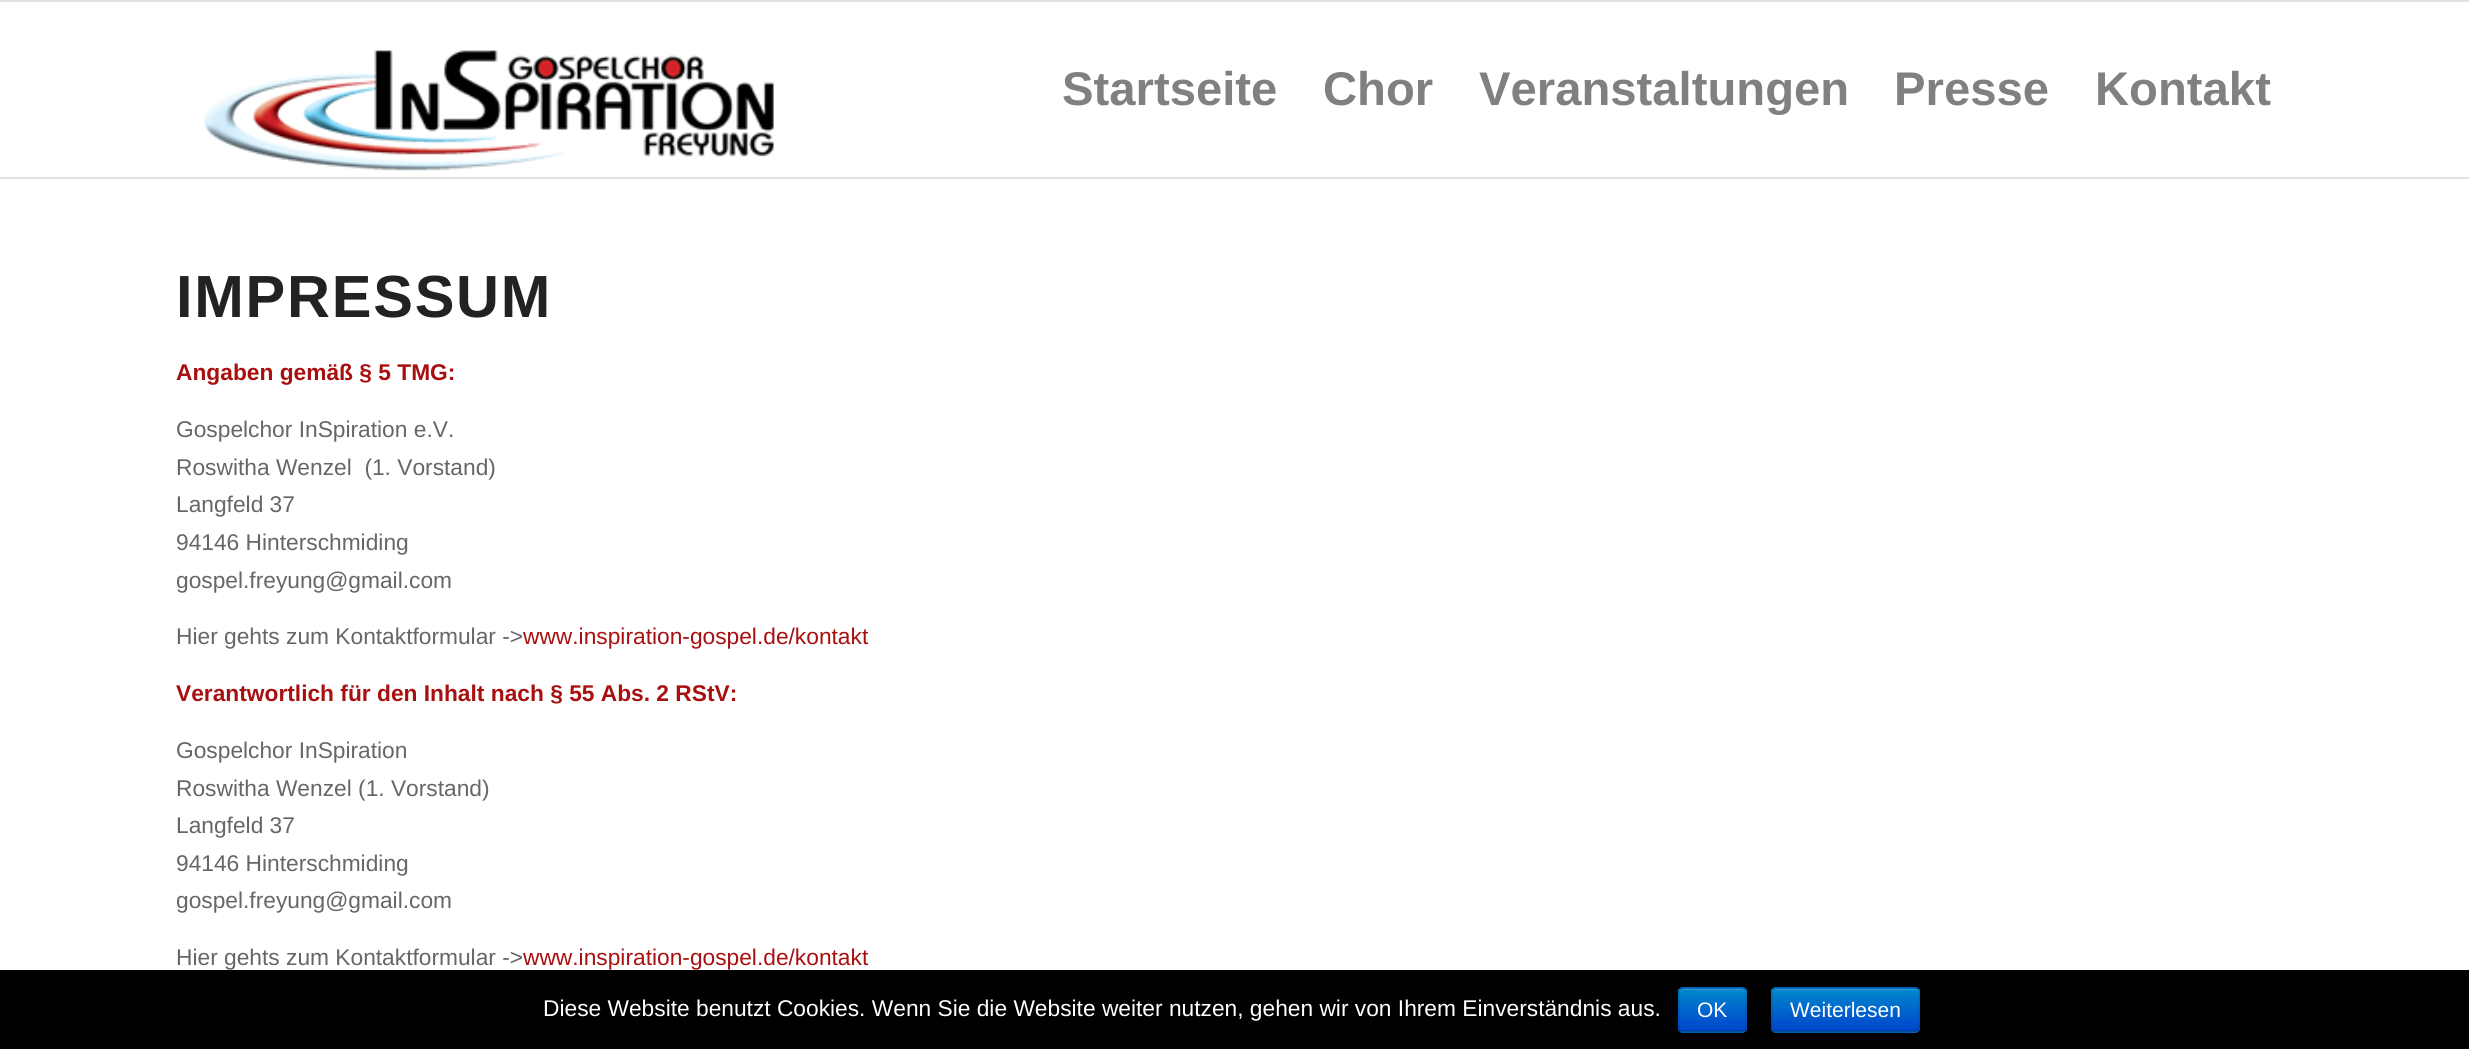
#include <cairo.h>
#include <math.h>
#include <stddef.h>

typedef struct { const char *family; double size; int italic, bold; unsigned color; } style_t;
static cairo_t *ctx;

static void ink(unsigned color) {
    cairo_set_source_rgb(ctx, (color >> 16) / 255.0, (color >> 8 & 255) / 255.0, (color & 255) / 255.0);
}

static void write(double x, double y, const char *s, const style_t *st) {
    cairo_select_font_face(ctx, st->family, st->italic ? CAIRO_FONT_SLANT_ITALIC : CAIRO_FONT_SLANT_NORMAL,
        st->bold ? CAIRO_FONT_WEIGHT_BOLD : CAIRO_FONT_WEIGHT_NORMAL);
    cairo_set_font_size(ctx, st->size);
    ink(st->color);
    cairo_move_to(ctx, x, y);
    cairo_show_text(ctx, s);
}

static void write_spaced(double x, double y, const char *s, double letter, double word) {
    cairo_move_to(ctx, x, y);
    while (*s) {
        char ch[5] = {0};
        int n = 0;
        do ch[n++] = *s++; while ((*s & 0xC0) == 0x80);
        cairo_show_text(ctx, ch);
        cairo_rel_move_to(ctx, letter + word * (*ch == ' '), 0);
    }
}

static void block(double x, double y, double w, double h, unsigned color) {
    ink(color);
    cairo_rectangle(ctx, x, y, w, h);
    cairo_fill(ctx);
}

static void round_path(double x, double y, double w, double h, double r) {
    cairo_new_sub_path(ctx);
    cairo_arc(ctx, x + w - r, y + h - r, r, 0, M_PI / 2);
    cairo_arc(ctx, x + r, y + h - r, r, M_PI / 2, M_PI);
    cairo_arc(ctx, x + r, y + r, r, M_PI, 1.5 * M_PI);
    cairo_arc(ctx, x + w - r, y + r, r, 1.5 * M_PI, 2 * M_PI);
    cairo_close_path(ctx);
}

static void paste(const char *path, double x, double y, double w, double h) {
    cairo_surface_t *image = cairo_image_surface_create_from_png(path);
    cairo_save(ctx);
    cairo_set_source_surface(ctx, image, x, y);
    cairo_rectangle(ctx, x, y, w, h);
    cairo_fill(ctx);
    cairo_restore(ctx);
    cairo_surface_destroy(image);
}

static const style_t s1 = {"Liberation Sans", 47.25, 0, 1, 0x808080};
static const style_t s2 = {"Liberation Sans", 22.75, 0, 1, 0xa81010};
static const style_t s3 = {"Liberation Sans", 22.75, 0, 0, 0x666666};
static const style_t s4 = {"Liberation Sans", 22.75, 0, 0, 0xa81010};
static const style_t s5 = {"Liberation Sans", 22.75, 0, 0, 0xffffff};
static const style_t s6 = {"Liberation Sans", 21, 0, 0, 0xffffff};

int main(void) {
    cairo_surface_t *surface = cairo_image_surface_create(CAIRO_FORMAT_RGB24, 2469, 1049);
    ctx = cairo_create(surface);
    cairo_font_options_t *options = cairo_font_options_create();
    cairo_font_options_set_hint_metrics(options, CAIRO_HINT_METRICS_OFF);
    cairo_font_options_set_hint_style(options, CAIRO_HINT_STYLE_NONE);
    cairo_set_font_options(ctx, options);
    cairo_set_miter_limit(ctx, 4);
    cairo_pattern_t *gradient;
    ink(0xffffff);
    cairo_paint(ctx);
    block(0, 0, 2469, 2, 0xe1e1e1);
    block(0, 177, 2469, 2, 0xe1e1e1);
    paste("pic1.png", 204, 50, 570, 121);
    write(1062, 105, "Startseite", &s1);
    write(1323, 105, "Chor", &s1);
    write(1479, 105, "Veranstaltungen", &s1);
    write(1894, 105, "Presse", &s1);
    write(2095, 105, "Kontakt", &s1);
    cairo_set_font_size(ctx, 59.5);
    ink(0x222222);
    write_spaced(176, 317, "IMPRESSUM", 1.75, 0);
    write(176, 380, "Angaben gemäß § 5 TMG:", &s2);
    write(176, 437, "Gospelchor InSpiration e.V.", &s3);
    write(176, 475, "Roswitha Wenzel  (1. Vorstand)", &s3);
    write(176, 512, "Langfeld 37", &s3);
    write(176, 550, "94146 Hinterschmiding", &s3);
    write(176, 588, "gospel.freyung@gmail.com", &s3);
    write(176, 644, "Hier gehts zum Kontaktformular ->", &s3);
    write(523, 644, "www.inspiration-gospel.de/kontakt", &s4);
    write(176, 701, "Verantwortlich für den Inhalt nach § 55 Abs. 2 RStV:", &s2);
    write(176, 758, "Gospelchor InSpiration", &s3);
    write(176, 796, "Roswitha Wenzel (1. Vorstand)", &s3);
    write(176, 833, "Langfeld 37", &s3);
    write(176, 871, "94146 Hinterschmiding", &s3);
    write(176, 908, "gospel.freyung@gmail.com", &s3);
    write(176, 965, "Hier gehts zum Kontaktformular ->", &s3);
    write(523, 965, "www.inspiration-gospel.de/kontakt", &s4);
    block(0, 970, 2469, 79, 0x000000);
    write(543, 1016, "Diese Website benutzt Cookies. Wenn Sie die Website weiter nutzen, gehen wir von Ihrem Einverständnis aus.", &s5);
    ink(0x006dcc);
    round_path(1678, 987, 69, 46, 5);
    cairo_fill(ctx);
    cairo_save(ctx);
    round_path(1678, 987, 69, 46, 5);
    cairo_clip(ctx);
    gradient = cairo_pattern_create_linear(1712, 989, 1712, 1031);
    cairo_pattern_add_color_stop_rgba(gradient, 0, 0, 0.533, 0.8, 1);
    cairo_pattern_add_color_stop_rgba(gradient, 1, 0, 0.267, 0.8, 1);
    cairo_set_source(ctx, gradient);
    cairo_pattern_destroy(gradient);
    cairo_rectangle(ctx, 1678, 989, 69, 42);
    cairo_fill(ctx);
    cairo_restore(ctx);
    ink(0x339fd6);
    cairo_new_path(ctx);
    cairo_move_to(ctx, 1684, 990);
    cairo_line_to(ctx, 1741, 990);
    cairo_curve_to(ctx, 1743, 990, 1745, 992, 1745, 994);
    cairo_curve_to(ctx, 1745, 987, 1737, 989, 1732, 989);
    cairo_line_to(ctx, 1694, 989);
    cairo_curve_to(ctx, 1688, 989, 1680, 987, 1680, 994);
    cairo_curve_to(ctx, 1680, 992, 1682, 990, 1684, 990);
    cairo_close_path(ctx);
    cairo_fill(ctx);
    cairo_new_path(ctx);
    cairo_move_to(ctx, 1744.5, 1030.5);
    cairo_curve_to(ctx, 1743.5, 1031, 1742.5, 1031.5, 1741, 1031.5);
    cairo_line_to(ctx, 1683.5, 1031.5);
    cairo_curve_to(ctx, 1682.5, 1031.5, 1681, 1031, 1680.5, 1030.5);
    cairo_set_source_rgba(ctx, 0, 0, 0, 0.25);
    cairo_set_line_width(ctx, 1.8);
    cairo_stroke(ctx);
    cairo_new_path(ctx);
    cairo_move_to(ctx, 1680.5, 1030.5);
    cairo_curve_to(ctx, 1679.5, 1029.5, 1679, 1028.5, 1679, 1027);
    cairo_line_to(ctx, 1679, 992);
    cairo_curve_to(ctx, 1679, 991, 1679.5, 990, 1680.5, 989);
    cairo_curve_to(ctx, 1681, 988.5, 1682.5, 988, 1683.5, 988);
    cairo_line_to(ctx, 1741, 988);
    cairo_curve_to(ctx, 1742.5, 988, 1743.5, 988.5, 1744.5, 989);
    cairo_curve_to(ctx, 1745, 990, 1745.5, 991, 1745.5, 992);
    cairo_line_to(ctx, 1745.5, 1027);
    cairo_curve_to(ctx, 1745.5, 1028.5, 1745, 1029.5, 1744.5, 1030.5);
    cairo_set_source_rgba(ctx, 0, 0, 0, 0.1);
    cairo_stroke(ctx);
    write(1697, 1017, "OK", &s6);
    ink(0x006dcc);
    round_path(1771, 987, 149, 46, 5);
    cairo_fill(ctx);
    cairo_save(ctx);
    round_path(1771, 987, 149, 46, 5);
    cairo_clip(ctx);
    gradient = cairo_pattern_create_linear(1845, 989, 1845, 1031);
    cairo_pattern_add_color_stop_rgba(gradient, 0, 0, 0.533, 0.8, 1);
    cairo_pattern_add_color_stop_rgba(gradient, 1, 0, 0.267, 0.8, 1);
    cairo_set_source(ctx, gradient);
    cairo_pattern_destroy(gradient);
    cairo_rectangle(ctx, 1771, 989, 149, 42);
    cairo_fill(ctx);
    cairo_restore(ctx);
    cairo_set_source_rgba(ctx, 1, 1, 1, 0.2);
    cairo_new_path(ctx);
    cairo_move_to(ctx, 1776, 990);
    cairo_line_to(ctx, 1914, 990);
    cairo_curve_to(ctx, 1916, 990, 1918, 992, 1918, 994);
    cairo_line_to(ctx, 1918, 993);
    cairo_curve_to(ctx, 1918, 991, 1916, 989, 1914, 989);
    cairo_line_to(ctx, 1777, 989);
    cairo_curve_to(ctx, 1775, 989, 1773, 991, 1773, 993);
    cairo_line_to(ctx, 1773, 994);
    cairo_curve_to(ctx, 1773, 992, 1774, 990, 1776, 990);
    cairo_close_path(ctx);
    cairo_fill(ctx);
    cairo_new_path(ctx);
    cairo_move_to(ctx, 1917.5, 1030.5);
    cairo_line_to(ctx, 1914.5, 1031.5);
    cairo_line_to(ctx, 1776, 1031.5);
    cairo_line_to(ctx, 1773, 1030.5);
    cairo_set_source_rgba(ctx, 0, 0, 0, 0.25);
    cairo_stroke(ctx);
    cairo_new_path(ctx);
    cairo_move_to(ctx, 1773, 1030.5);
    cairo_curve_to(ctx, 1770.5, 1027.5, 1772, 1018.5, 1772, 1015.5);
    cairo_line_to(ctx, 1772, 998);
    cairo_curve_to(ctx, 1772, 994.5, 1771, 988, 1776, 988);
    cairo_line_to(ctx, 1914.5, 988);
    cairo_curve_to(ctx, 1920, 988, 1919, 994.5, 1919, 998);
    cairo_line_to(ctx, 1919, 1015.5);
    cairo_curve_to(ctx, 1919, 1018.5, 1920.5, 1027.5, 1917.5, 1030.5);
    cairo_set_source_rgba(ctx, 0, 0, 0, 0.1);
    cairo_stroke(ctx);
    write(1790, 1017, "Weiterlesen", &s6);
    cairo_surface_write_to_png(surface, "screenshot.png");
    cairo_font_options_destroy(options);
    cairo_destroy(ctx);
    cairo_surface_destroy(surface);
    return 0;
}
